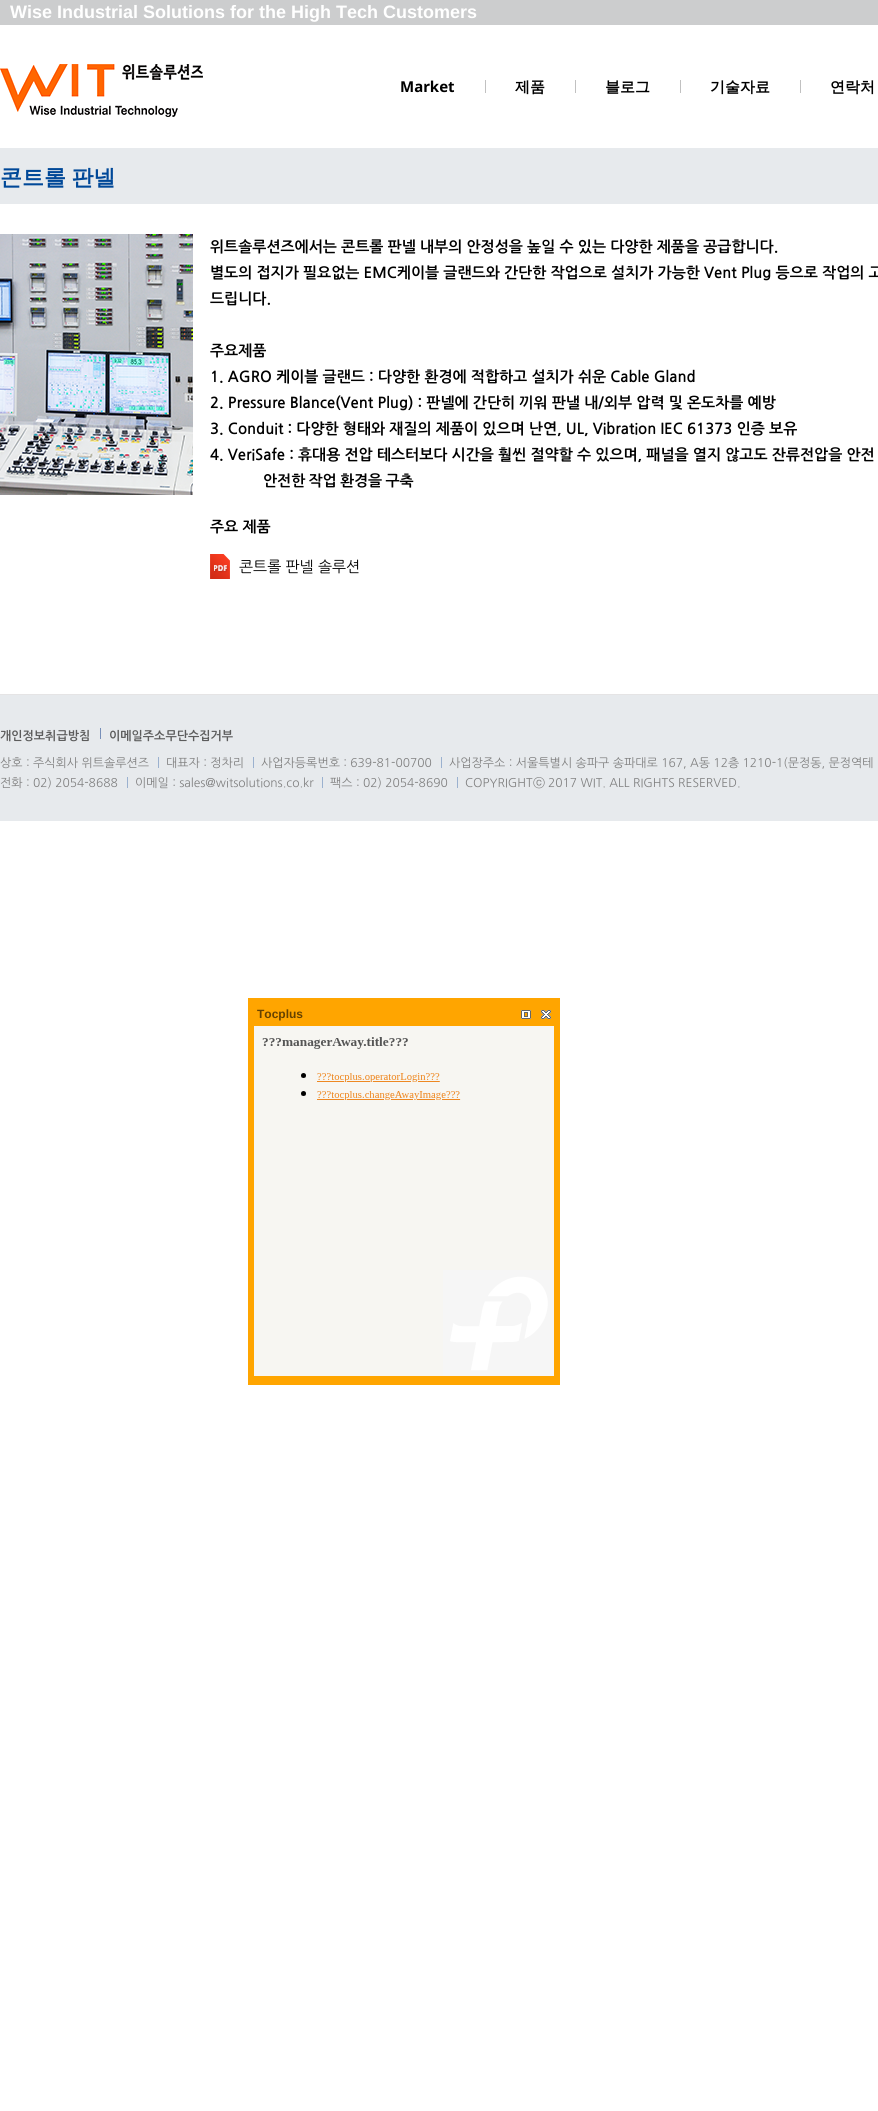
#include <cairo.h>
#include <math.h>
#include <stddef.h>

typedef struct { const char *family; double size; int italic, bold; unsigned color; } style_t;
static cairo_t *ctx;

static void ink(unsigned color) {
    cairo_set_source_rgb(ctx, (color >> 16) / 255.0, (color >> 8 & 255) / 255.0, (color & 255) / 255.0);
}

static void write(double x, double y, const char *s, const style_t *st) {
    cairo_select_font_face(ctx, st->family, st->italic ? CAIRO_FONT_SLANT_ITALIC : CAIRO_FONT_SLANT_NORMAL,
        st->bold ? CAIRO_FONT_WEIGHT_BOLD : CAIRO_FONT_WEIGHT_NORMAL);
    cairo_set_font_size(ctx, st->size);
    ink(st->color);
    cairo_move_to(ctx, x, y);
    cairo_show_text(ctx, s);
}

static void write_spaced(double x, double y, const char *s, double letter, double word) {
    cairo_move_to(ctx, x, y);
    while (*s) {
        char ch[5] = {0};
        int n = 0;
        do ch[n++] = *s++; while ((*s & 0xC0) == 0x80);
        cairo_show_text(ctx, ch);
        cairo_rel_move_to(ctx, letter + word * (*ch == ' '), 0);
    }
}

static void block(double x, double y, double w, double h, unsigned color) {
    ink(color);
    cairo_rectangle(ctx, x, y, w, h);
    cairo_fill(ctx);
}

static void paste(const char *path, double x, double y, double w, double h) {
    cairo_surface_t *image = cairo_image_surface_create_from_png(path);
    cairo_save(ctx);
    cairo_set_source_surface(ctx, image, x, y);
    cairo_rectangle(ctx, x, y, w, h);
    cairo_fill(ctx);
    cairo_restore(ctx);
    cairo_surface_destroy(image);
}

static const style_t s1 = {"Liberation Sans", 18, 0, 1, 0xffffff};
static const style_t s2 = {"Noto Sans", 15, 0, 1, 0x000000};
static const style_t s3 = {"WenQuanYi Zen Hei", 15, 0, 1, 0x000000};
static const style_t s4 = {"NanumGothic", 15, 0, 1, 0x000000};
static const style_t s5 = {"NanumGothic", 15, 0, 0, 0x000000};
static const style_t s6 = {"NanumGothic", 12, 0, 1, 0x5c5c5c};
static const style_t s7 = {"NanumGothic", 12, 0, 0, 0x7f7f7f};
static const style_t s8 = {"WenQuanYi Zen Hei Medium", 12, 0, 0, 0x7f7f7f};
static const style_t s9 = {"Liberation Sans", 12, 0, 1, 0x664200};

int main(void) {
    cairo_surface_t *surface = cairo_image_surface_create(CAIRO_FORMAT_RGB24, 878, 2111);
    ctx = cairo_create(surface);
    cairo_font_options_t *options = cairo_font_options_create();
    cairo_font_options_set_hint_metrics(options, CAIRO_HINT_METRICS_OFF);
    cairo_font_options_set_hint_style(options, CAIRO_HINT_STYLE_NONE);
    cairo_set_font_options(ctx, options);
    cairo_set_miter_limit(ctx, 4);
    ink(0xffffff);
    cairo_paint(ctx);
    block(0, 0, 878, 25, 0xcccdce);
    write(10, 18, "Wise Industrial Solutions for the High Tech Customers", &s1);
    paste("pic1.png", 0, 64, 203, 53);
    write(400, 92, "Market", &s2);
    block(485, 80, 1, 13, 0xc1c1c1);
    write(515, 92, "제품", &s3);
    block(575, 80, 1, 13, 0xc1c1c1);
    write(605, 92, "블로그", &s3);
    block(680, 80, 1, 13, 0xc1c1c1);
    write(710, 92, "기술자료", &s3);
    block(800, 80, 1, 13, 0xc1c1c1);
    write(830, 92, "연락처", &s3);
    block(0, 148, 878, 56, 0xe7eaed);
    cairo_set_font_size(ctx, 22);
    ink(0x004898);
    write_spaced(0, 185, "콘트롤 판넬", 0, -1);
    paste("pic2.png", 0, 234, 193, 261);
    write(210, 252, "위트솔루션즈에서는 콘트롤 판넬 내부의 안정성을 높일 수 있는 다양한 제품을 공급합니다.", &s4);
    write(210, 278, "별도의 접지가 필요없는 EMC케이블 글랜드와 간단한 작업으로 설치가 가능한 Vent Plug 등으로 작업의 고", &s4);
    write(210, 304, "드립니다.", &s4);
    write(210, 356, "주요제품", &s4);
    write(210, 382, "1. AGRO 케이블 글랜드 : 다양한 환경에 적합하고 설치가 쉬운 Cable Gland", &s4);
    write(210, 408, "2. Pressure Blance(Vent Plug) : 판넬에 간단히 끼워 판낼 내/외부 압력 및 온도차를 예방", &s4);
    write(210, 434, "3. Conduit : 다양한 형태와 재질의 제품이 있으며 난연, UL, Vibration IEC 61373 인증 보유", &s4);
    write(210, 460, "4. VeriSafe : 휴대용 전압 테스터보다 시간을 훨씬 절약할 수 있으며, 패널을 열지 않고도 잔류전압을 안전", &s4);
    write_spaced(263, 486, "안전한 작업 환경을 구축", 0, -1);
    write(210, 532, "주요 제품", &s4);
    paste("pic3.png", 210, 554, 20, 25);
    write(239, 572, "콘트롤 판넬 솔루션", &s5);
    block(0, 695, 878, 126, 0xe7eaed);
    block(0, 694, 878, 1, 0xe5e4e5);
    write(0, 740, "개인정보취급방침", &s6);
    block(100, 728, 1, 11, 0x778fb9);
    write(109, 740, "이메일주소무단수집거부", &s6);
    write(0, 767, "상호 : 주식회사 위트솔루션즈", &s7);
    block(158, 757, 1, 11, 0x9bb1cf);
    write(166, 767, "대표자 : 정차리", &s7);
    block(253, 757, 1, 11, 0x9bb1cf);
    write(261, 767, "사업자등록번호 : 639-81-00700", &s7);
    block(441, 757, 1, 11, 0x9bb1cf);
    write(449, 767, "사업장주소 : 서울특별시 송파구 송파대로 167, A동 12층 1210-1(문정동, 문정역테", &s7);
    write(0, 787, "전화 : 02) 2054-8688", &s7);
    block(127, 777, 1, 11, 0x9bb1cf);
    write(135, 787, "이메일 : sales@witsolutions.co.kr", &s7);
    block(322, 777, 1, 11, 0x9bb1cf);
    write(330, 787, "팩스 : 02) 2054-8690", &s7);
    block(457, 777, 1, 11, 0x9bb1cf);
    write(465, 787, "COPYRIGHT", &s7);
    write(533, 787, "ⓒ", &s8);
    write(548, 787, "2017 WIT. ALL RIGHTS RESERVED.", &s7);
    cairo_rectangle(ctx, 249, 999, 310, 385);
    ink(0xffa500);
    cairo_stroke(ctx);
    block(250, 1000, 308, 383, 0xffa500);
    write(257, 1018, "Tocplus", &s9);
    paste("pic4.png", 521, 1010, 10, 9);
    paste("pic5.png", 541, 1010, 10, 9);
    paste("pic6.png", 254, 1026, 300, 350);
    cairo_surface_write_to_png(surface, "screenshot.png");
    cairo_font_options_destroy(options);
    cairo_destroy(ctx);
    cairo_surface_destroy(surface);
    return 0;
}
